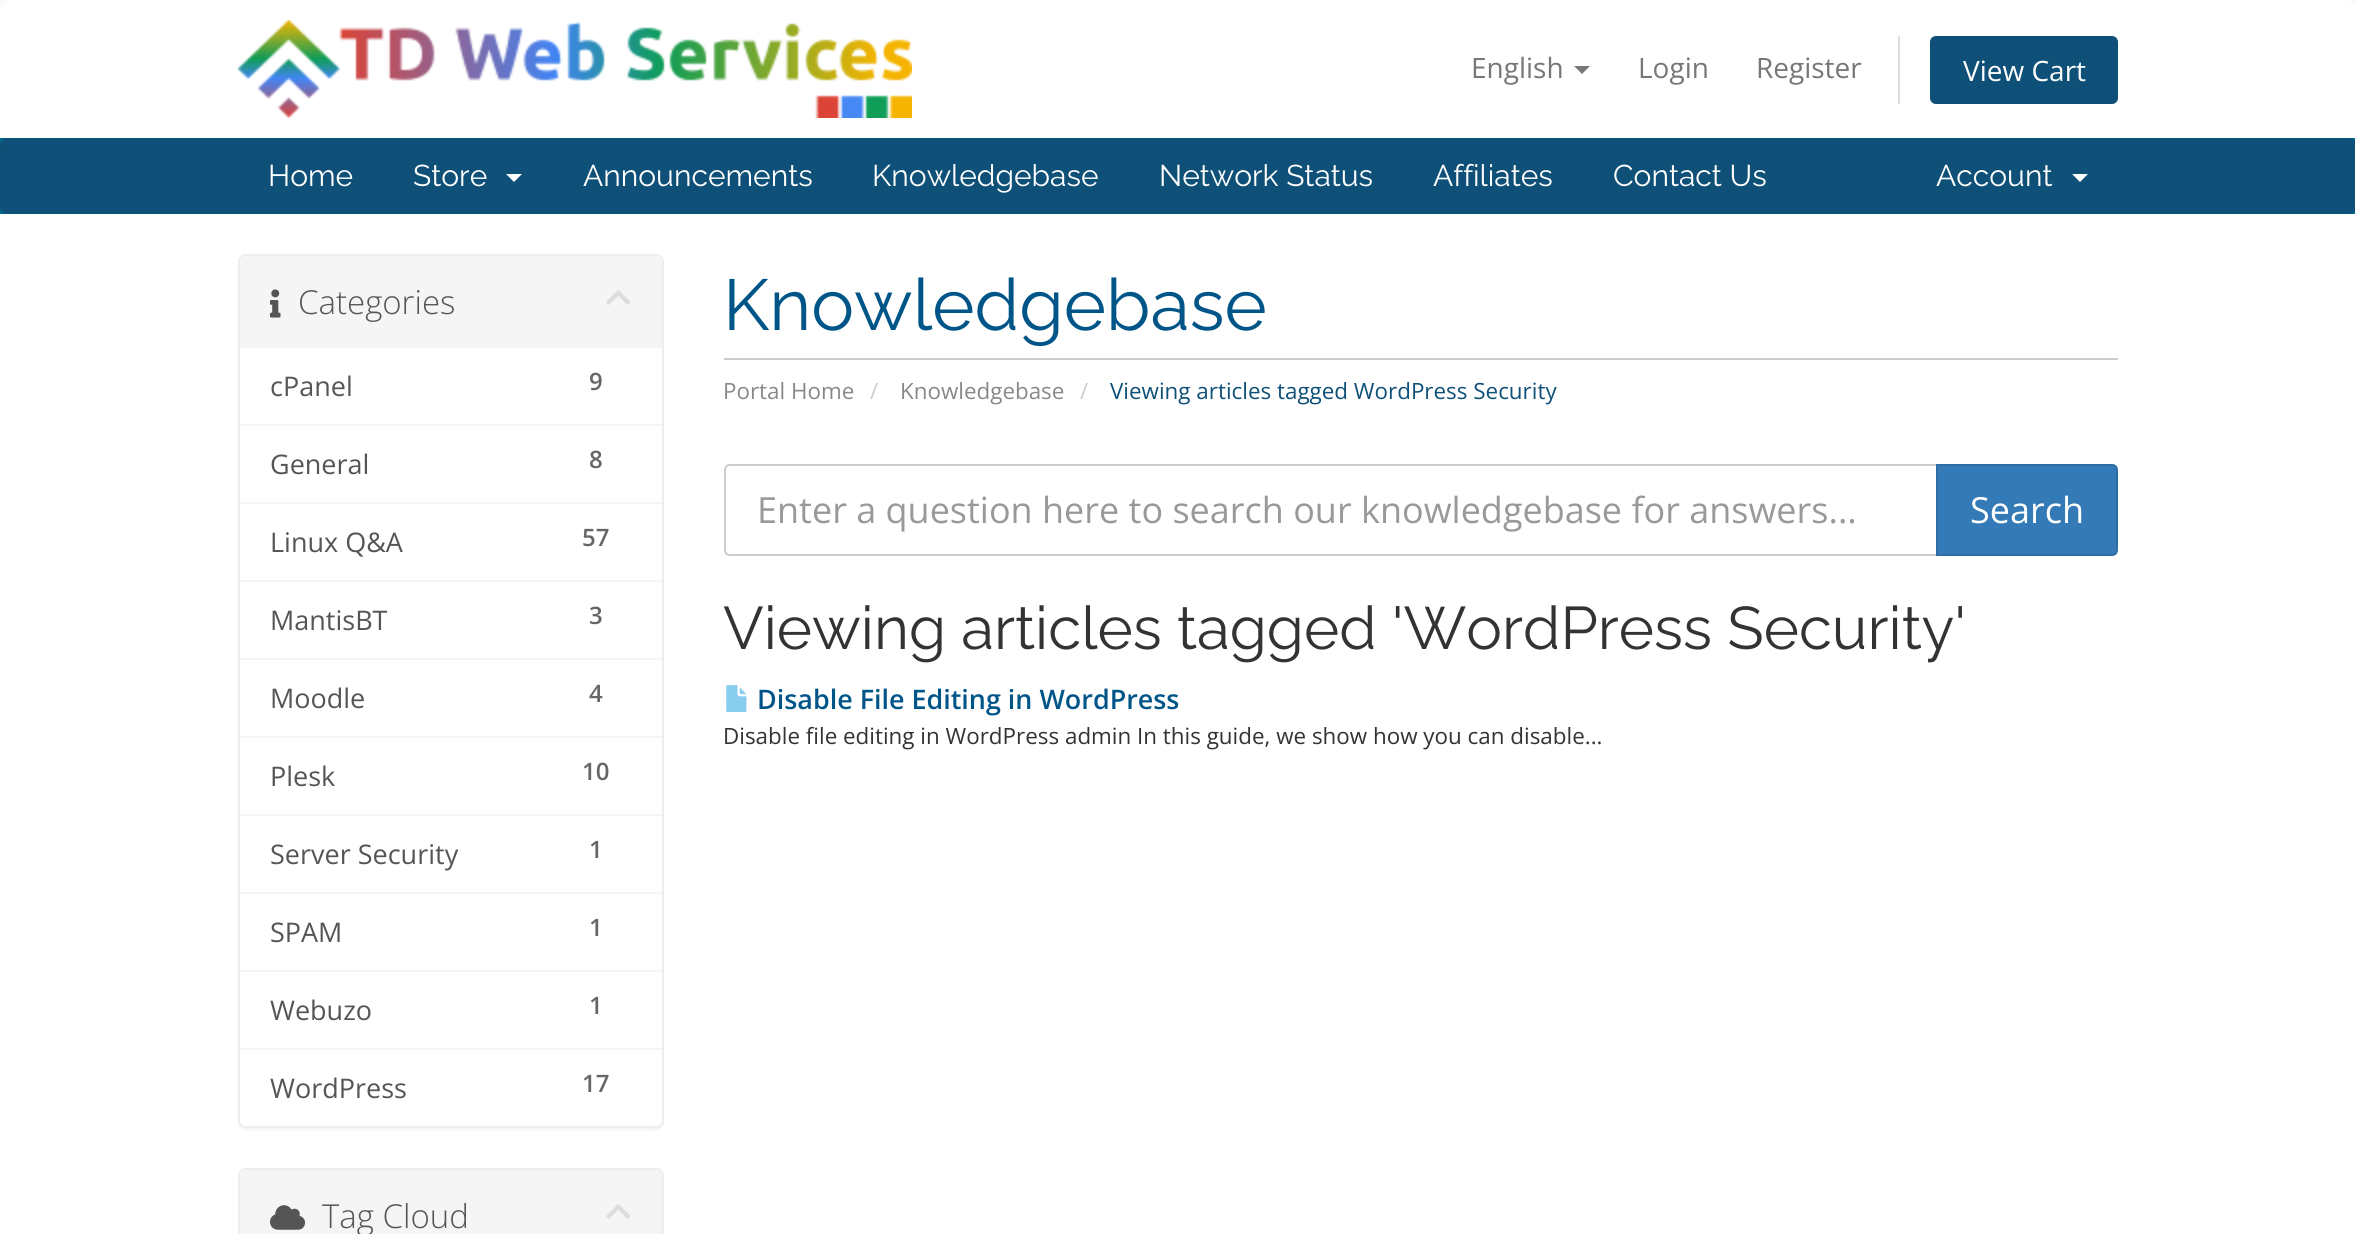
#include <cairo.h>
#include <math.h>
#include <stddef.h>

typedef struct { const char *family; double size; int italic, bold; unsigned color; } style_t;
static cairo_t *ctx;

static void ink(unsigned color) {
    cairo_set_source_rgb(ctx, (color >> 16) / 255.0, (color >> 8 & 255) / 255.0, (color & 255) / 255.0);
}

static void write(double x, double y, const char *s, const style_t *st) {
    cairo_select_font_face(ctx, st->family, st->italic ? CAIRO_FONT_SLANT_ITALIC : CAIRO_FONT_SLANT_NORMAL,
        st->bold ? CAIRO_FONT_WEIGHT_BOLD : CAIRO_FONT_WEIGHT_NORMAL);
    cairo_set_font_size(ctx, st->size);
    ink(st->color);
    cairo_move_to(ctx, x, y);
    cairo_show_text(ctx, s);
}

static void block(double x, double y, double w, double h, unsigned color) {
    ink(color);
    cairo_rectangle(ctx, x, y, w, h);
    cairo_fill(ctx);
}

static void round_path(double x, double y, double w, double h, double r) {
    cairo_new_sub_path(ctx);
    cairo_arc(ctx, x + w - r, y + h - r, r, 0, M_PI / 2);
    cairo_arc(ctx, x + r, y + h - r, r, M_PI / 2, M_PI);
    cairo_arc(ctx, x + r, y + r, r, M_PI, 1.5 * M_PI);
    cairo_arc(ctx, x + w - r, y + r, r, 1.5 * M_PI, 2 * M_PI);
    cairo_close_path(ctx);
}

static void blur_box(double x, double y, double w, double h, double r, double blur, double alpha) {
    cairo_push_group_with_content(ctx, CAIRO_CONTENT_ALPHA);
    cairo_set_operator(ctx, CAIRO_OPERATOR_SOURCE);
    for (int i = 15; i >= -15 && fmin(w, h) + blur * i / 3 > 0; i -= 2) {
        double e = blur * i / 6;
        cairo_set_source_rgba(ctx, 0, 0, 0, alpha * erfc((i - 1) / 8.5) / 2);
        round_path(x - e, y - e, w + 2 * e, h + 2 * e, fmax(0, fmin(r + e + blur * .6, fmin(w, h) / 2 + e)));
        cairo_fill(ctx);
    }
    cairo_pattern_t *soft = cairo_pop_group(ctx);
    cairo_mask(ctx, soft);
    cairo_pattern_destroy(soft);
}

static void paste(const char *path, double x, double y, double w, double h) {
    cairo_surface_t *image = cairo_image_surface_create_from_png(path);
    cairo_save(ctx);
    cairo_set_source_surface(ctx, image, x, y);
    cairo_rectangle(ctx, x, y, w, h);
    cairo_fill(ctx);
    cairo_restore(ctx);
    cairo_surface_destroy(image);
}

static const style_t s1 = {"Open Sans", 28, 0, 0, 0x777777};
static const style_t s2 = {"Open Sans", 28, 0, 0, 0xffffff};
static const style_t s3 = {"Raleway", 30, 0, 0, 0xffffff};
static const style_t s4 = {"Open Sans Light", 33, 0, 0, 0x555555};
static const style_t s5 = {"Open Sans", 27, 0, 0, 0x555555};
static const style_t s6 = {"Open Sans SemiBold", 24, 0, 0, 0x666666};
static const style_t s7 = {"Raleway", 72, 0, 0, 0x005588};
static const style_t s8 = {"Open Sans", 22.4, 0, 0, 0x888888};
static const style_t s9 = {"Open Sans", 22.4, 0, 0, 0xcccccc};
static const style_t s10 = {"Open Sans", 22.4, 0, 0, 0x0e5077};
static const style_t s11 = {"Open Sans", 36, 0, 0, 0x999999};
static const style_t s12 = {"Open Sans", 36, 0, 0, 0xffffff};
static const style_t s13 = {"Raleway", 60, 0, 0, 0x333333};
static const style_t s14 = {"Open Sans SemiBold", 26.9, 0, 0, 0x005588};
static const style_t s15 = {"Open Sans", 22.4, 0, 0, 0x333333};

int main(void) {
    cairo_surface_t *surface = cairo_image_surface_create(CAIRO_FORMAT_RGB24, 2355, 1234);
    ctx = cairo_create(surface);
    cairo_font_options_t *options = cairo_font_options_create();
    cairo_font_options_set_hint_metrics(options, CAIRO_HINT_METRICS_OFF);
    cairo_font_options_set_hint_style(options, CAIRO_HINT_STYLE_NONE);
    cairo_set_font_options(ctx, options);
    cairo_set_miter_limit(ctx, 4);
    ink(0xf8f8f8);
    cairo_paint(ctx);
    ink(0xffffff);
    cairo_new_path(ctx);
    cairo_move_to(ctx, 10, 0);
    cairo_line_to(ctx, 2346, 0);
    cairo_curve_to(ctx, 2351.5, 0, 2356, 4.5, 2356, 10);
    cairo_line_to(ctx, 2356, 138);
    cairo_line_to(ctx, 0, 138);
    cairo_line_to(ctx, 0, 10);
    cairo_curve_to(ctx, 0, 4.5, 4.5, 0, 10, 0);
    cairo_close_path(ctx);
    cairo_fill(ctx);
    paste("pic1.png", 238, 20, 674, 98);
    write(1471, 78, "English", &s1);
    cairo_new_path(ctx);
    cairo_move_to(ctx, 1574, 66);
    cairo_line_to(ctx, 1590, 66);
    cairo_line_to(ctx, 1582, 74);
    cairo_close_path(ctx);
    cairo_fill(ctx);
    write(1638, 78, "Login", &s1);
    write(1756, 78, "Register", &s1);
    block(1898, 36, 2, 68, 0xdddddd);
    ink(0x0e5077);
    round_path(1930, 36, 188, 68, 6);
    cairo_fill(ctx);
    write(1963, 81, "View Cart", &s2);
    block(0, 138, 2355, 76, 0x006687);
    ink(0x0e5077);
    round_path(0, 138, 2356, 76, 8);
    cairo_fill(ctx);
    write(268, 186, "Home", &s3);
    write(413, 186, "Store", &s3);
    cairo_new_path(ctx);
    cairo_move_to(ctx, 506, 174);
    cairo_line_to(ctx, 522, 174);
    cairo_line_to(ctx, 514, 182);
    cairo_close_path(ctx);
    cairo_fill(ctx);
    write(583, 186, "Announcements", &s3);
    write(872, 186, "Knowledgebase", &s3);
    write(1159, 186, "Network Status", &s3);
    write(1433, 186, "Affiliates", &s3);
    write(1613, 186, "Contact Us", &s3);
    write(1936, 186, "Account", &s3);
    cairo_new_path(ctx);
    cairo_move_to(ctx, 2072, 174);
    cairo_line_to(ctx, 2088, 174);
    cairo_line_to(ctx, 2080, 182);
    cairo_close_path(ctx);
    cairo_fill(ctx);
    block(0, 214, 2355, 1020, 0xffffff);
    ink(0x000000);
    blur_box(238, 256, 426, 874, 8, 1, 0.05);
    ink(0xffffff);
    round_path(239, 255, 424, 872, 7);
    cairo_fill_preserve(ctx);
    ink(0xeeeeee);
    cairo_stroke(ctx);
    ink(0xf5f5f5);
    cairo_new_path(ctx);
    cairo_move_to(ctx, 246, 256);
    cairo_line_to(ctx, 656, 256);
    cairo_curve_to(ctx, 659.5, 256, 662, 258.5, 662, 262);
    cairo_line_to(ctx, 662, 348);
    cairo_line_to(ctx, 240, 348);
    cairo_line_to(ctx, 240, 262);
    cairo_curve_to(ctx, 240, 258.5, 242.5, 256, 246, 256);
    cairo_close_path(ctx);
    cairo_fill(ctx);
    paste("pic2.png", 270, 289, 11, 29);
    write(298, 314, "Categories", &s4);
    paste("pic3.png", 606, 290, 24, 15);
    block(240, 424, 422, 2, 0xf5f5f5);
    write(270, 396, "cPanel", &s5);
    write(589, 390, "9", &s6);
    block(240, 502, 422, 2, 0xf5f5f5);
    write(270, 474, "General", &s5);
    write(589, 468, "8", &s6);
    block(240, 580, 422, 2, 0xf5f5f5);
    write(270, 552, "Linux Q&A", &s5);
    write(582, 546, "57", &s6);
    block(240, 658, 422, 2, 0xf5f5f5);
    write(270, 630, "MantisBT", &s5);
    write(589, 624, "3", &s6);
    block(240, 736, 422, 2, 0xf5f5f5);
    write(270, 708, "Moodle", &s5);
    write(589, 702, "4", &s6);
    block(240, 814, 422, 2, 0xf5f5f5);
    write(270, 786, "Plesk", &s5);
    write(582, 780, "10", &s6);
    block(240, 892, 422, 2, 0xf5f5f5);
    write(270, 864, "Server Security", &s5);
    write(589, 858, "1", &s6);
    block(240, 970, 422, 2, 0xf5f5f5);
    write(270, 942, "SPAM", &s5);
    write(589, 936, "1", &s6);
    write(270, 1020, "Webuzo", &s5);
    write(589, 1014, "1", &s6);
    ink(0xffffff);
    cairo_new_path(ctx);
    cairo_move_to(ctx, 240, 1048);
    cairo_line_to(ctx, 662, 1048);
    cairo_line_to(ctx, 662, 1120);
    cairo_curve_to(ctx, 662, 1123.5, 659.5, 1126, 656, 1126);
    cairo_line_to(ctx, 246, 1126);
    cairo_curve_to(ctx, 242.5, 1126, 240, 1123.5, 240, 1120);
    cairo_close_path(ctx);
    cairo_fill(ctx);
    block(240, 1048, 422, 2, 0xf5f5f5);
    write(270, 1098, "WordPress", &s5);
    write(582, 1092, "17", &s6);
    block(724, 358, 1394, 2, 0xcccccc);
    write(723, 330, "Knowledgebase", &s7);
    write(723, 399, "Portal Home", &s8);
    write(870, 399, "/", &s9);
    write(900, 399, "Knowledgebase", &s8);
    write(1080, 399, "/", &s9);
    write(1110, 399, "Viewing articles tagged WordPress Security", &s10);
    cairo_new_path(ctx);
    cairo_move_to(ctx, 730, 465);
    cairo_line_to(ctx, 1937, 465);
    cairo_line_to(ctx, 1937, 555);
    cairo_line_to(ctx, 730, 555);
    cairo_curve_to(ctx, 727, 555, 725, 553, 725, 550);
    cairo_line_to(ctx, 725, 470);
    cairo_curve_to(ctx, 725, 467, 727, 465, 730, 465);
    cairo_close_path(ctx);
    ink(0xcccccc);
    cairo_stroke(ctx);
    write(757, 523, "Enter a question here to search our knowledgebase for answers...", &s11);
    ink(0x337ab7);
    cairo_new_path(ctx);
    cairo_move_to(ctx, 1937, 465);
    cairo_line_to(ctx, 2112, 465);
    cairo_curve_to(ctx, 2115, 465, 2117, 467, 2117, 470);
    cairo_line_to(ctx, 2117, 550);
    cairo_curve_to(ctx, 2117, 553, 2115, 555, 2112, 555);
    cairo_line_to(ctx, 1937, 555);
    cairo_close_path(ctx);
    cairo_fill_preserve(ctx);
    ink(0x2e6da4);
    cairo_stroke(ctx);
    write(1970, 523, "Search", &s12);
    write(723, 649, "Viewing articles tagged 'WordPress Security'", &s13);
    paste("pic4.png", 726, 685, 21, 27);
    write(757, 709, "Disable File Editing in WordPress", &s14);
    write(723, 744, "Disable file editing in WordPress admin", &s15);
    write(1137, 744, "In this guide, we show how you can disable...", &s15);
    round_path(239, 1169, 424, 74, 7);
    ink(0xeeeeee);
    cairo_stroke(ctx);
    ink(0xf5f5f5);
    cairo_new_path(ctx);
    cairo_move_to(ctx, 246, 1170);
    cairo_line_to(ctx, 656, 1170);
    cairo_curve_to(ctx, 659.5, 1170, 662, 1172.5, 662, 1176);
    cairo_line_to(ctx, 662, 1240);
    cairo_line_to(ctx, 240, 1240);
    cairo_line_to(ctx, 240, 1176);
    cairo_curve_to(ctx, 240, 1172.5, 242.5, 1170, 246, 1170);
    cairo_close_path(ctx);
    cairo_fill(ctx);
    paste("pic5.png", 270, 1205, 36, 25);
    write(322, 1228, "Tag Cloud", &s4);
    paste("pic3.png", 606, 1204, 24, 15);
    cairo_surface_write_to_png(surface, "screenshot.png");
    cairo_font_options_destroy(options);
    cairo_destroy(ctx);
    cairo_surface_destroy(surface);
    return 0;
}
